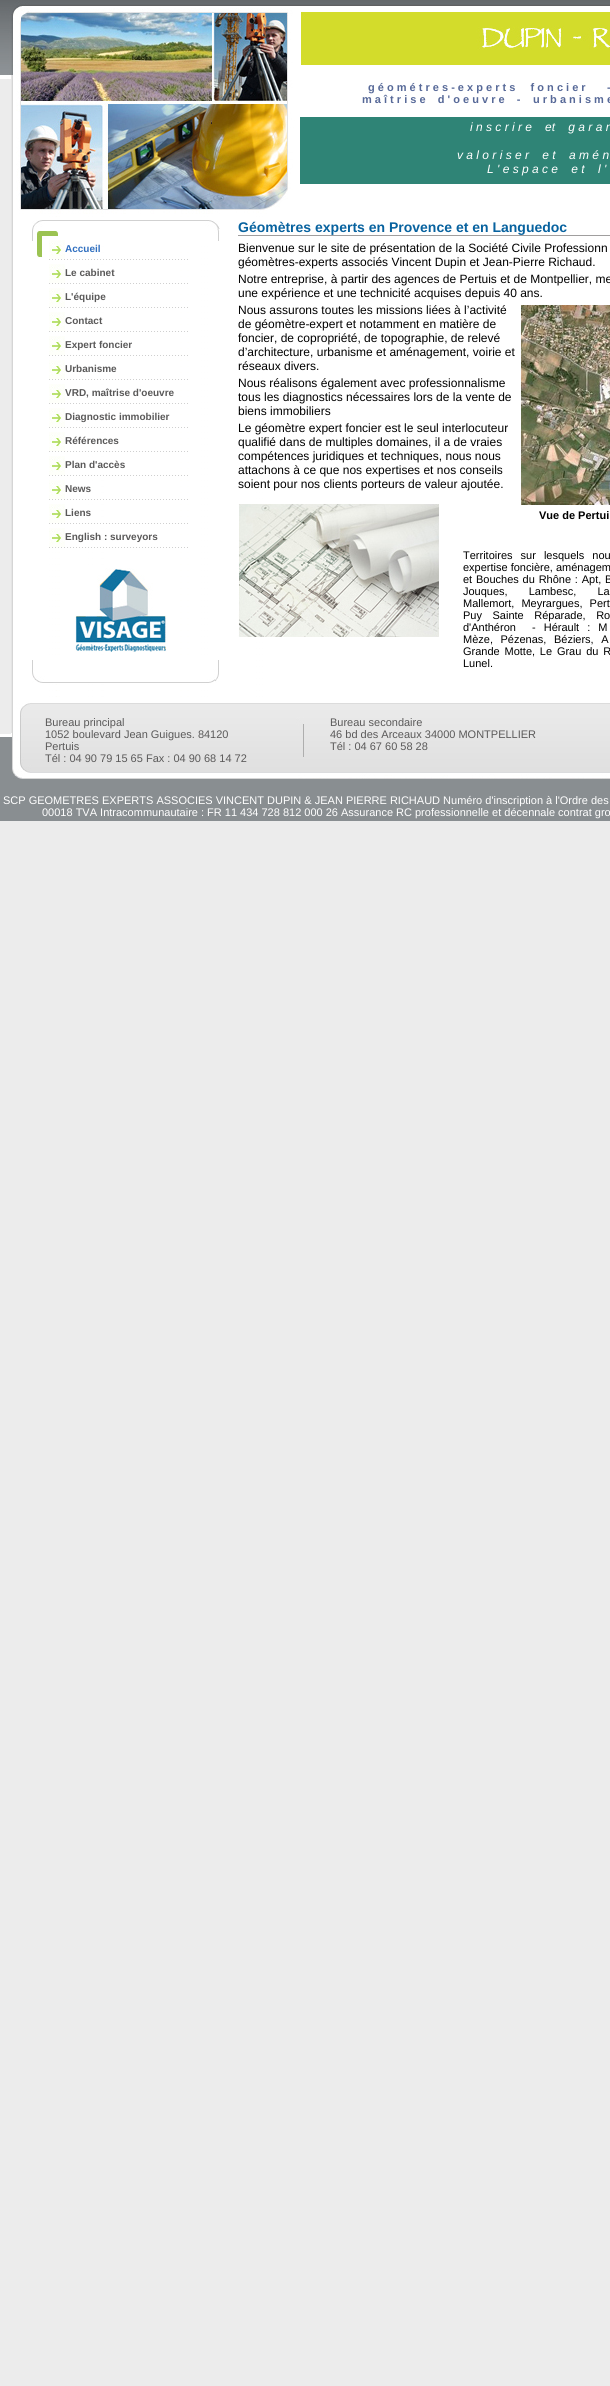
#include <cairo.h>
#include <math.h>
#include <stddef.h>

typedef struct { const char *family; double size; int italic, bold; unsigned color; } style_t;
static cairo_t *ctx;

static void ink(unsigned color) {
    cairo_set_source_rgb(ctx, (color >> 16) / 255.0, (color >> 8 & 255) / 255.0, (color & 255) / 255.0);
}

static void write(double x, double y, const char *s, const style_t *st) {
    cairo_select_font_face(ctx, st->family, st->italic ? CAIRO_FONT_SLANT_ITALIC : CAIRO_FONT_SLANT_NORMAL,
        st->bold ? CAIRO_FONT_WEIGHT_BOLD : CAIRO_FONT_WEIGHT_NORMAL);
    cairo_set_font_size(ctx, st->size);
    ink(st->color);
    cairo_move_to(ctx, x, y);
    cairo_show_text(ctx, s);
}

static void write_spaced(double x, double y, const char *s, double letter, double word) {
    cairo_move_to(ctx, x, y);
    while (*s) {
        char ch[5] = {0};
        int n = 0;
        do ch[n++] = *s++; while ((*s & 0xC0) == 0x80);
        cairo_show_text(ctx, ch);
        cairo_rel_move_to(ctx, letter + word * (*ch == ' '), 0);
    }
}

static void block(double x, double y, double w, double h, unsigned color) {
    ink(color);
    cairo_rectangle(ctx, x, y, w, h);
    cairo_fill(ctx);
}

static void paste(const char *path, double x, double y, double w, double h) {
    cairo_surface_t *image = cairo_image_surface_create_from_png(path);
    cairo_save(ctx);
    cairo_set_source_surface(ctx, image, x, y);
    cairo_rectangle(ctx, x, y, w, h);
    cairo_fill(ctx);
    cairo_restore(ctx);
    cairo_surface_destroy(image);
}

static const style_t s1 = {"Liberation Sans", 11, 0, 1, 0x576998};
static const style_t s2 = {"Liberation Sans", 12, 1, 0, 0xffffff};
static const style_t s3 = {"Liberation Sans", 10, 0, 1, 0x306fbf};
static const style_t s4 = {"Liberation Sans", 10, 0, 1, 0x5a5959};
static const style_t s5 = {"Liberation Sans", 14, 0, 1, 0x07629f};
static const style_t s6 = {"Liberation Sans", 12, 0, 0, 0x000000};
static const style_t s7 = {"Liberation Sans", 11, 0, 1, 0x000000};
static const style_t s8 = {"Liberation Sans", 11, 0, 0, 0x000000};
static const style_t s9 = {"Liberation Sans", 11, 0, 0, 0x5a5959};
static const style_t s10 = {"Liberation Sans", 11, 0, 0, 0xffffff};

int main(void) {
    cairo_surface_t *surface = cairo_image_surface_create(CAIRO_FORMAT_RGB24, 610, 2386);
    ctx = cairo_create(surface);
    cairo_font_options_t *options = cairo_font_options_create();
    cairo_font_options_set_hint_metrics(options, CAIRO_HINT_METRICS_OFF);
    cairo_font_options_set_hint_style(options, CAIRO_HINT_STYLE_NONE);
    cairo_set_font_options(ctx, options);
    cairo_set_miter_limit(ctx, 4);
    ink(0xececec);
    cairo_paint(ctx);
    paste("pic1.png", 0, 214, 610, 487);
    paste("pic2.png", 0, 0, 610, 214);
    paste("pic3.png", 301, 11, 309, 54);
    write(368, 91, "g é o m é t r e s - e x p e r t s     f o n c i e r       -", &s1);
    write(362, 103, "m a î t r i s e    d ' o e u v r e    -", &s1);
    write(533, 103, "u r b a n i s m e", &s1);
    block(300, 117, 310, 67, 0x2f8476);
    write(470, 131, "i n s c r i r e", &s2);
    write(545, 131, "et    g a r a n", &s2);
    write(457, 159, "v a l o r i s e r    e t    a m é n", &s2);
    write(487, 173, "L ' e s p a c e    e t    l '", &s2);
    paste("pic4.png", 32, 220, 188, 21);
    block(56, 246, 1, 409, 0xffffff);
    paste("pic5.png", 37, 230, 22, 28);
    paste("pic6.png", 49, 240, 16, 19);
    write(65, 252, "Accueil", &s3);
    paste("pic7.png", 49, 259, 139, 1);
    paste("pic6.png", 49, 264, 16, 19);
    write(65, 276, "Le cabinet", &s4);
    paste("pic7.png", 49, 283, 139, 1);
    paste("pic6.png", 49, 288, 16, 19);
    write(65, 300, "L'équipe", &s4);
    paste("pic7.png", 49, 307, 139, 1);
    paste("pic6.png", 49, 312, 16, 19);
    write(65, 324, "Contact", &s4);
    paste("pic7.png", 49, 331, 139, 1);
    paste("pic6.png", 49, 336, 16, 19);
    write(65, 348, "Expert foncier", &s4);
    paste("pic7.png", 49, 355, 139, 1);
    paste("pic6.png", 49, 360, 16, 19);
    write(65, 372, "Urbanisme", &s4);
    paste("pic7.png", 49, 379, 139, 1);
    paste("pic6.png", 49, 384, 16, 19);
    write(65, 396, "VRD, maîtrise d'oeuvre", &s4);
    paste("pic7.png", 49, 403, 139, 1);
    paste("pic6.png", 49, 408, 16, 19);
    write(65, 420, "Diagnostic immobilier", &s4);
    paste("pic7.png", 49, 427, 139, 1);
    paste("pic6.png", 49, 432, 16, 19);
    write(65, 444, "Références", &s4);
    paste("pic7.png", 49, 451, 139, 1);
    paste("pic6.png", 49, 456, 16, 19);
    write(65, 468, "Plan d'accès", &s4);
    paste("pic7.png", 49, 475, 139, 1);
    paste("pic6.png", 49, 480, 16, 19);
    write(65, 492, "News", &s4);
    paste("pic7.png", 49, 499, 139, 1);
    paste("pic6.png", 49, 504, 16, 19);
    write(65, 516, "Liens", &s4);
    paste("pic7.png", 49, 523, 139, 1);
    paste("pic6.png", 49, 528, 16, 19);
    write(65, 540, "English : surveyors", &s4);
    paste("pic7.png", 49, 547, 139, 1);
    paste("pic8.png", 75, 568, 93, 84);
    paste("pic9.png", 32, 660, 187, 23);
    block(238, 235, 372, 1, 0xa09e9e);
    write(238, 232, "Géomètres experts en Provence et en Languedoc", &s5);
    write(238, 252, "Bienvenue sur le site de présentation de la Société Civile Professionn", &s6);
    write(238, 266, "géomètres-experts associés Vincent Dupin et Jean-Pierre Richaud.", &s6);
    write(238, 283, "Notre entreprise, à partir des agences de Pertuis et de Montpellier, me", &s6);
    write(238, 297, "une expérience et une technicité acquises depuis 40 ans.", &s6);
    write(238, 314, "Nous assurons toutes les missions liées à l’activité", &s6);
    write(238, 328, "de géomètre-expert et notamment en matière de", &s6);
    write(238, 342, "foncier, de copropriété, de topographie, de relevé", &s6);
    write(238, 356, "d’architecture, urbanisme et aménagement, voirie et", &s6);
    write(238, 370, "réseaux divers.", &s6);
    write(238, 387, "Nous réalisons également avec professionnalisme", &s6);
    write(238, 401, "tous les diagnostics nécessaires lors de la vente de", &s6);
    write(238, 415, "biens immobiliers", &s6);
    write(238, 432, "Le géomètre expert foncier est le seul interlocuteur", &s6);
    write(238, 446, "qualifié dans de multiples domaines, il a de vraies", &s6);
    write(238, 460, "compétences juridiques et techniques, nous nous", &s6);
    write(238, 474, "attachons à ce que nos expertises et nos conseils", &s6);
    write(238, 488, "soient pour nos clients porteurs de valeur ajoutée.", &s6);
    paste("pic10.png", 238, 504, 201, 133);
    paste("pic11.png", 520, 304, 90, 201);
    write(539, 519, "Vue de Pertui", &s7);
    cairo_select_font_face(ctx, "Liberation Sans", CAIRO_FONT_SLANT_NORMAL, CAIRO_FONT_WEIGHT_NORMAL);
    write_spaced(463, 559, "Territoires sur lesquels nou", 0, 5);
    write(463, 571, "expertise foncière, aménagem", &s8);
    write_spaced(463, 583, "et Bouches du Rhône : Apt, B", 0, 0.75);
    write_spaced(463, 595, "Jouques, Lambesc, La", 0, 18);
    write_spaced(463, 607, "Mallemort, Meyrargues, Pert", 0, 4);
    write_spaced(463, 619, "Puy Sainte Réparade, Ro", 0, 7.5);
    write_spaced(463, 631, "d'Anthéron  - Hérault : M", 0, 5);
    write_spaced(463, 643, "Mèze, Pézenas, Béziers, A", 0, 4.5);
    write_spaced(463, 655, "Grande Motte, Le Grau du R", 0, 1.75);
    write(463, 667, "Lunel.", &s8);
    block(0, 737, 610, 84, 0x898e91);
    paste("pic12.png", 0, 701, 11, 36);
    paste("pic13.png", 11, 701, 599, 78);
    write(45, 726, "Bureau principal", &s9);
    write(45, 738, "1052 boulevard Jean Guigues. 84120", &s9);
    write(45, 750, "Pertuis", &s9);
    write(45, 762, "Tél : 04 90 79 15 65 Fax : 04 90 68 14 72", &s9);
    write(330, 726, "Bureau secondaire", &s9);
    write(330, 738, "46 bd des Arceaux 34000 MONTPELLIER", &s9);
    write(330, 750, "Tél : 04 67 60 58 28", &s9);
    write(3, 804, "SCP GEOMETRES EXPERTS ASSOCIES VINCENT DUPIN & JEAN PIERRE RICHAUD Numéro d'inscription à l'Ordre des", &s10);
    write(42, 816, "00018 TVA Intracommunautaire : FR 11 434 728 812 000 26 Assurance RC professionnelle et décennale contrat gro", &s10);
    cairo_surface_write_to_png(surface, "screenshot.png");
    cairo_font_options_destroy(options);
    cairo_destroy(ctx);
    cairo_surface_destroy(surface);
    return 0;
}
